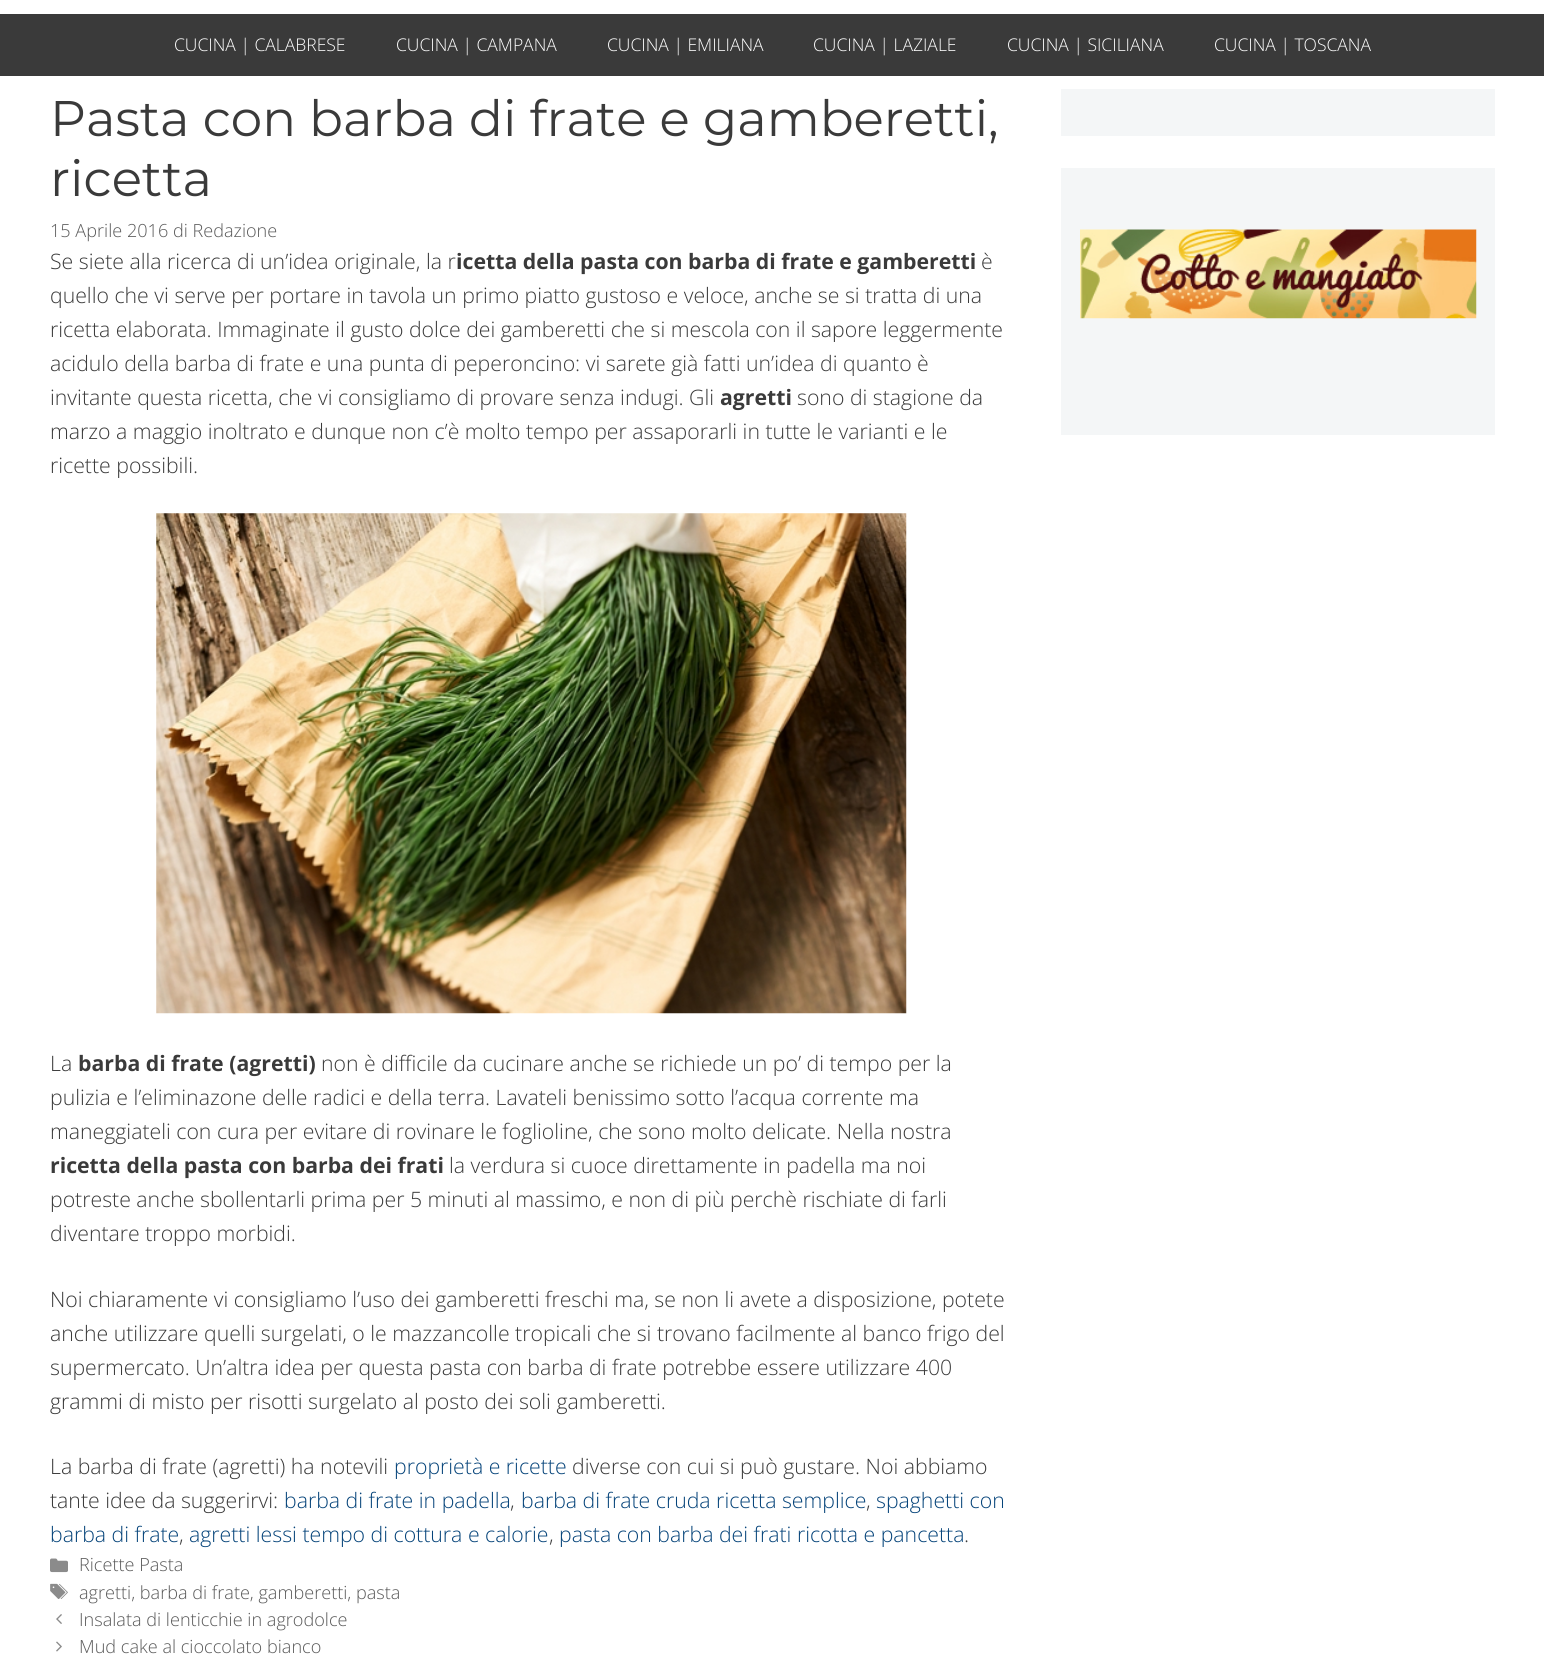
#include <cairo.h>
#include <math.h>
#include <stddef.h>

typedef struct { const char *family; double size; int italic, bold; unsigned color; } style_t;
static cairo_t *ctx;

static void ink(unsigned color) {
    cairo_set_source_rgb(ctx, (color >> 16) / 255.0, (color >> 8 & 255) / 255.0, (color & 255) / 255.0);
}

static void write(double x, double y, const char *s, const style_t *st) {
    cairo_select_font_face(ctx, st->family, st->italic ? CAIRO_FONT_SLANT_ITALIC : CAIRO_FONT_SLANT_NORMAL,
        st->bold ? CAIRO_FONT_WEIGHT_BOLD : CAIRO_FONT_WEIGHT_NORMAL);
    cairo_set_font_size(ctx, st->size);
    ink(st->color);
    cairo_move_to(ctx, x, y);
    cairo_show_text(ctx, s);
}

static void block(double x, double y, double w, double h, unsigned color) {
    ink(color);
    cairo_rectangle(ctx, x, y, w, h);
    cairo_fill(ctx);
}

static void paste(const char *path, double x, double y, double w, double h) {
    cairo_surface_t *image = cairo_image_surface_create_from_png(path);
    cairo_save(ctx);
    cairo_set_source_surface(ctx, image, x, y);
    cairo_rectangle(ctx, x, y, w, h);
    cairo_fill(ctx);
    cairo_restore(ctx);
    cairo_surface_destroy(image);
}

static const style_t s1 = {"Open Sans Light", 17.5, 0, 0, 0xffffff};
static const style_t s2 = {"Montserrat", 50, 0, 0, 0x3a3a3a};
static const style_t s3 = {"Open Sans Light", 18.1, 0, 0, 0x595959};
static const style_t s4 = {"Open Sans Light", 21.25, 0, 0, 0x3a3a3a};
static const style_t s5 = {"Open Sans", 21.25, 0, 1, 0x3a3a3a};
static const style_t s6 = {"Open Sans Light", 21.25, 0, 0, 0x06447a};

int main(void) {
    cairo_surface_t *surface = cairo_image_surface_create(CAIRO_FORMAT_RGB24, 1544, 1675);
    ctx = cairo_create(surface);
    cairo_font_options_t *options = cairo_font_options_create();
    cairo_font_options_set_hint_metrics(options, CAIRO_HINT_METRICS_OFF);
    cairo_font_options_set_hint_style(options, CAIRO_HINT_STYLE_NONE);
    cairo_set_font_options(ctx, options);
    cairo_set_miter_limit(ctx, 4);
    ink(0x3a3a3a);
    cairo_paint(ctx);
    block(0, 0, 1544, 14, 0xffffff);
    write(174, 51, "CUCINA | CALABRESE", &s1);
    write(396, 51, "CUCINA | CAMPANA", &s1);
    write(607, 51, "CUCINA | EMILIANA", &s1);
    write(813, 51, "CUCINA | LAZIALE", &s1);
    write(1007, 51, "CUCINA | SICILIANA", &s1);
    write(1214, 51, "CUCINA | TOSCANA", &s1);
    block(0, 76, 1544, 1599, 0xffffff);
    write(50, 136, "Pasta con barba di frate e gamberetti,", &s2);
    write(50, 196, "ricetta", &s2);
    write(50, 237, "15 Aprile 2016 di Redazione", &s3);
    write(50, 269, "Se siete alla ricerca di un’idea originale, la r", &s4);
    write(456, 269, "icetta della pasta con barba di frate e gamberetti", &s5);
    write(981, 269, "è", &s4);
    write(50, 303, "quello che vi serve per portare in tavola un primo piatto gustoso e veloce, anche se si tratta di una", &s4);
    write(50, 337, "ricetta elaborata. Immaginate il gusto dolce dei gamberetti che si mescola con il sapore leggermente", &s4);
    write(50, 371, "acidulo della barba di frate e una punta di peperoncino: vi sarete già fatti un’idea di quanto è", &s4);
    write(50, 405, "invitante questa ricetta, che vi consigliamo di provare senza indugi. Gli", &s4);
    write(720, 405, "agretti", &s5);
    write(797, 405, "sono di stagione da", &s4);
    write(50, 439, "marzo a maggio inoltrato e dunque non c’è molto tempo per assaporarli in tutte le varianti e le", &s4);
    write(50, 473, "ricette possibili.", &s4);
    paste("pic1.png", 156, 513, 751, 501);
    write(50, 1071, "La", &s4);
    write(78, 1071, "barba di frate (agretti)", &s5);
    write(321, 1071, "non è difficile da cucinare anche se richiede un po’ di tempo per la", &s4);
    write(50, 1105, "pulizia e l’eliminazone delle radici e della terra. Lavateli benissimo sotto l’acqua corrente ma", &s4);
    write(50, 1139, "maneggiateli con cura per evitare di rovinare le foglioline, che sono molto delicate. Nella nostra", &s4);
    write(50, 1173, "ricetta della pasta con barba dei frati", &s5);
    write(449, 1173, "la verdura si cuoce direttamente in padella ma noi", &s4);
    write(50, 1207, "potreste anche sbollentarli prima per 5 minuti al massimo, e non di più perchè rischiate di farli", &s4);
    write(50, 1241, "diventare troppo morbidi.", &s4);
    write(50, 1307, "Noi chiaramente vi consigliamo l’uso dei gamberetti freschi ma, se non li avete a disposizione, potete", &s4);
    write(50, 1341, "anche utilizzare quelli surgelati, o le mazzancolle tropicali che si trovano facilmente al banco frigo del", &s4);
    write(50, 1375, "supermercato. Un’altra idea per questa pasta con barba di frate potrebbe essere utilizzare 400", &s4);
    write(50, 1409, "grammi di misto per risotti surgelato al posto dei soli gamberetti.", &s4);
    write(50, 1474, "La barba di frate (agretti) ha notevili", &s4);
    write(394, 1474, "proprietà e ricette", &s6);
    write(572, 1474, "diverse con cui si può gustare. Noi abbiamo", &s4);
    write(50, 1508, "tante idee da suggerirvi:", &s4);
    write(284, 1508, "barba di frate in padella", &s6);
    write(510, 1508, ",", &s4);
    write(521, 1508, "barba di frate cruda ricetta semplice", &s6);
    write(866, 1508, ",", &s4);
    write(876, 1508, "spaghetti con", &s6);
    write(50, 1542, "barba di frate", &s6);
    write(179, 1542, ",", &s4);
    write(189, 1542, "agretti lessi tempo di cottura e calorie", &s6);
    write(549, 1542, ",", &s4);
    write(559, 1542, "pasta con barba dei frati ricotta e pancetta", &s6);
    write(964, 1542, ".", &s4);
    paste("pic2.png", 50, 1558, 18, 15);
    write(79, 1571, "Ricette Pasta", &s3);
    paste("pic3.png", 50, 1583, 18, 16);
    write(79, 1599, "agretti, barba di frate, gamberetti, pasta", &s3);
    paste("pic4.png", 56, 1614, 6, 10);
    write(79, 1626, "Insalata di lenticchie in agrodolce", &s3);
    paste("pic5.png", 56, 1641, 6, 11);
    write(79, 1653, "Mud cake al cioccolato bianco", &s3);
    block(1061, 89, 434, 47, 0xf4f6f7);
    block(1061, 168, 434, 267, 0xf4f6f7);
    paste("pic6.png", 1080, 229, 397, 90);
    cairo_surface_write_to_png(surface, "screenshot.png");
    cairo_font_options_destroy(options);
    cairo_destroy(ctx);
    cairo_surface_destroy(surface);
    return 0;
}
